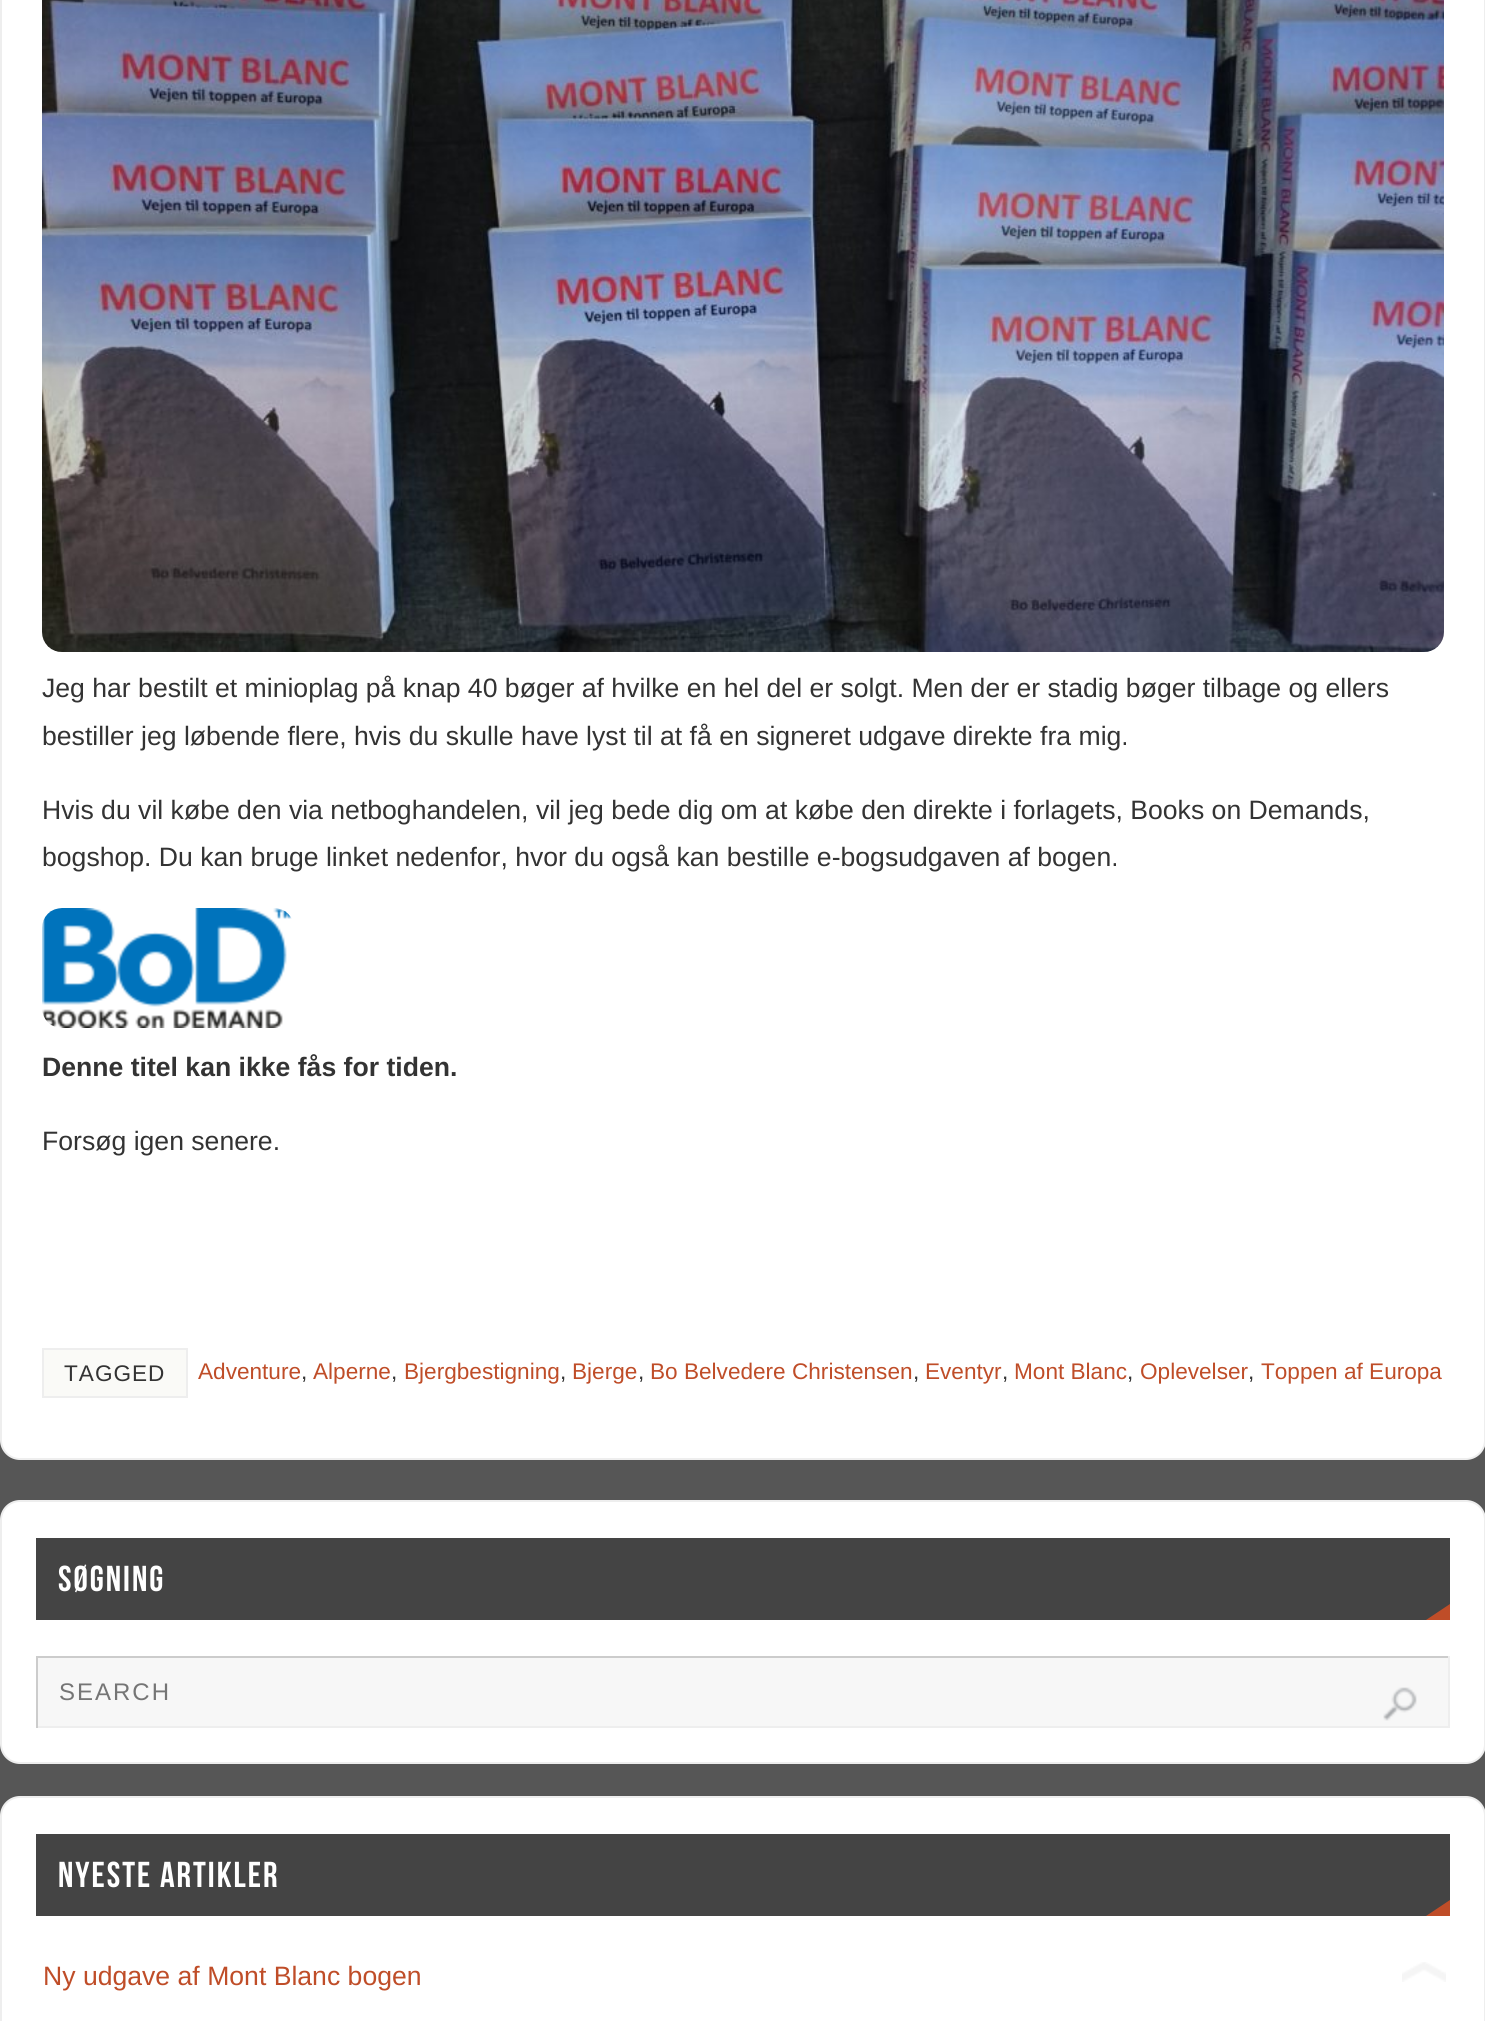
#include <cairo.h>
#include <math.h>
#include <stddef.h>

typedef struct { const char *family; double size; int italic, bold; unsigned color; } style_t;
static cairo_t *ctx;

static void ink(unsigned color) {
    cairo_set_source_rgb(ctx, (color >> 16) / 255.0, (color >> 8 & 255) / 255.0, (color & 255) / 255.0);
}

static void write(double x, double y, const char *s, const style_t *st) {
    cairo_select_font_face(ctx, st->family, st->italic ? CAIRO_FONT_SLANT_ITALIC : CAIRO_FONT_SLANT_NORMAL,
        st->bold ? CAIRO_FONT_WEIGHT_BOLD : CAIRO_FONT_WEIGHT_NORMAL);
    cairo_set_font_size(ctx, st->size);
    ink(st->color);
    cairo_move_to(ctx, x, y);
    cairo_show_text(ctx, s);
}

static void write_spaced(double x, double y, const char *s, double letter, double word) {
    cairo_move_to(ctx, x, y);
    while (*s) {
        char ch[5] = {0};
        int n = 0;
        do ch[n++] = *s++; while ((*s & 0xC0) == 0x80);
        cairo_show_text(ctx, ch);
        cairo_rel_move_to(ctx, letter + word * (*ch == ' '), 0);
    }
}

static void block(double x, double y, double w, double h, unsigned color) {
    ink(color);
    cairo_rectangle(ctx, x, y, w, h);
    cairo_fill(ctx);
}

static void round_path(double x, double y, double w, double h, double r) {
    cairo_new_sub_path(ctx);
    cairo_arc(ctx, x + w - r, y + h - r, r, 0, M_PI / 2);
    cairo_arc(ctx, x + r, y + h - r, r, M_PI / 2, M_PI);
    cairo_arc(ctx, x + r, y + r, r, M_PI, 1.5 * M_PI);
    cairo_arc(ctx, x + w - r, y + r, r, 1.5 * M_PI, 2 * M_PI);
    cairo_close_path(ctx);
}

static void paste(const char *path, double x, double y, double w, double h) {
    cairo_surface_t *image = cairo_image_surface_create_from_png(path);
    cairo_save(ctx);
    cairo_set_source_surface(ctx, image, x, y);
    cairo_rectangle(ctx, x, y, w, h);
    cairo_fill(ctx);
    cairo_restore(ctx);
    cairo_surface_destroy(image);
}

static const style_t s1 = {"Liberation Sans", 26.6, 0, 0, 0x333333};
static const style_t s2 = {"Liberation Sans", 26.6, 0, 1, 0x333333};
static const style_t s3 = {"Liberation Sans", 22.6, 0, 0, 0xbf4d28};
static const style_t s4 = {"Liberation Sans", 22.6, 0, 0, 0x333333};
static const style_t s5 = {"Liberation Sans", 26.6, 0, 0, 0xbf4d28};

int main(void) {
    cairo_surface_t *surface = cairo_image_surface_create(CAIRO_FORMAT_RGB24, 1485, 2021);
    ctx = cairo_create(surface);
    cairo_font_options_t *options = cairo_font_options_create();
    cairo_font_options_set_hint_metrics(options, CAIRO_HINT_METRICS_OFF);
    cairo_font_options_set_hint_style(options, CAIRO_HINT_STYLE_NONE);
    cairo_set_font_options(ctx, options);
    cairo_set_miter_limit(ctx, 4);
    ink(0x565656);
    cairo_paint(ctx);
    ink(0xffffff);
    round_path(1, -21, 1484, 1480, 19);
    cairo_fill_preserve(ctx);
    ink(0xeeeeee);
    cairo_stroke(ctx);
    paste("pic1.png", 42, 0, 1402, 652);
    write(42, 697, "Jeg har bestilt et minioplag på knap 40 bøger af hvilke en hel del er solgt. Men der er stadig bøger tilbage og ellers", &s1);
    write(42, 745, "bestiller jeg løbende flere, hvis du skulle have lyst til at få en signeret udgave direkte fra mig.", &s1);
    write(42, 819, "Hvis du vil købe den via netboghandelen, vil jeg bede dig om at købe den direkte i forlagets, Books on Demands,", &s1);
    write(42, 866, "bogshop. Du kan bruge linket nedenfor, hvor du også kan bestille e-bogsudgaven af bogen.", &s1);
    paste("pic2.png", 42, 908, 250, 120);
    write(42, 1076, "Denne titel kan ikke fås for tiden.", &s2);
    write(42, 1150, "Forsøg igen senere.", &s1);
    ink(0xfafaf7);
    cairo_rectangle(ctx, 43, 1349, 144, 48);
    cairo_fill_preserve(ctx);
    ink(0xeeeeee);
    cairo_stroke(ctx);
    cairo_set_font_size(ctx, 22.6);
    ink(0x333333);
    write_spaced(64, 1381, "TAGGED", 1, 0);
    write(198, 1379, "Adventure", &s3);
    write(301, 1379, ",", &s4);
    write(313, 1379, "Alperne", &s3);
    write(391, 1379, ",", &s4);
    write(404, 1379, "Bjergbestigning", &s3);
    write(560, 1379, ",", &s4);
    write(572, 1379, "Bjerge", &s3);
    write(638, 1379, ",", &s4);
    write(650, 1379, "Bo Belvedere Christensen", &s3);
    write(913, 1379, ",", &s4);
    write(925, 1379, "Eventyr", &s3);
    write(1002, 1379, ",", &s4);
    write(1014, 1379, "Mont Blanc", &s3);
    write(1127, 1379, ",", &s4);
    write(1140, 1379, "Oplevelser", &s3);
    write(1248, 1379, ",", &s4);
    write(1261, 1379, "Toppen af Europa", &s3);
    ink(0xffffff);
    round_path(1, 1501, 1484, 262, 19);
    cairo_fill_preserve(ctx);
    ink(0xeeeeee);
    cairo_stroke(ctx);
    block(36, 1538, 1414, 82, 0x444444);
    cairo_select_font_face(ctx, "Bebas Neue", CAIRO_FONT_SLANT_NORMAL, CAIRO_FONT_WEIGHT_NORMAL);
    cairo_set_font_size(ctx, 36);
    ink(0xffffff);
    write_spaced(58, 1591, "SØGNING", 2, 0);
    ink(0xbf4d28);
    cairo_new_path(ctx);
    cairo_move_to(ctx, 1450, 1620);
    cairo_line_to(ctx, 1426, 1620);
    cairo_line_to(ctx, 1450, 1604);
    cairo_close_path(ctx);
    cairo_fill(ctx);
    block(38, 1658, 1410, 68, 0xf7f7f7);
    block(36, 1656, 1414, 2, 0xcccccc);
    block(1448, 1656, 2, 72, 0xeeeeee);
    block(36, 1726, 1414, 2, 0xeeeeee);
    block(36, 1656, 2, 72, 0xcccccc);
    cairo_select_font_face(ctx, "Liberation Sans", CAIRO_FONT_SLANT_NORMAL, CAIRO_FONT_WEIGHT_NORMAL);
    cairo_set_font_size(ctx, 24);
    ink(0x757575);
    write_spaced(59, 1700, "SEARCH", 2, 0);
    paste("pic3.png", 1383, 1687, 34, 34);
    ink(0xffffff);
    round_path(1, 1797, 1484, 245, 19);
    cairo_fill_preserve(ctx);
    ink(0xeeeeee);
    cairo_stroke(ctx);
    block(36, 1834, 1414, 82, 0x444444);
    cairo_select_font_face(ctx, "Bebas Neue", CAIRO_FONT_SLANT_NORMAL, CAIRO_FONT_WEIGHT_NORMAL);
    cairo_set_font_size(ctx, 36);
    ink(0xffffff);
    write_spaced(58, 1887, "NYESTE ARTIKLER", 2, 0);
    ink(0xbf4d28);
    cairo_new_path(ctx);
    cairo_move_to(ctx, 1450, 1916);
    cairo_line_to(ctx, 1426, 1916);
    cairo_line_to(ctx, 1450, 1900);
    cairo_close_path(ctx);
    cairo_fill(ctx);
    write(43, 1985, "Ny udgave af Mont Blanc bogen", &s5);
    paste("pic4.png", 1402, 1962, 44, 20);
    cairo_surface_write_to_png(surface, "screenshot.png");
    cairo_font_options_destroy(options);
    cairo_destroy(ctx);
    cairo_surface_destroy(surface);
    return 0;
}
